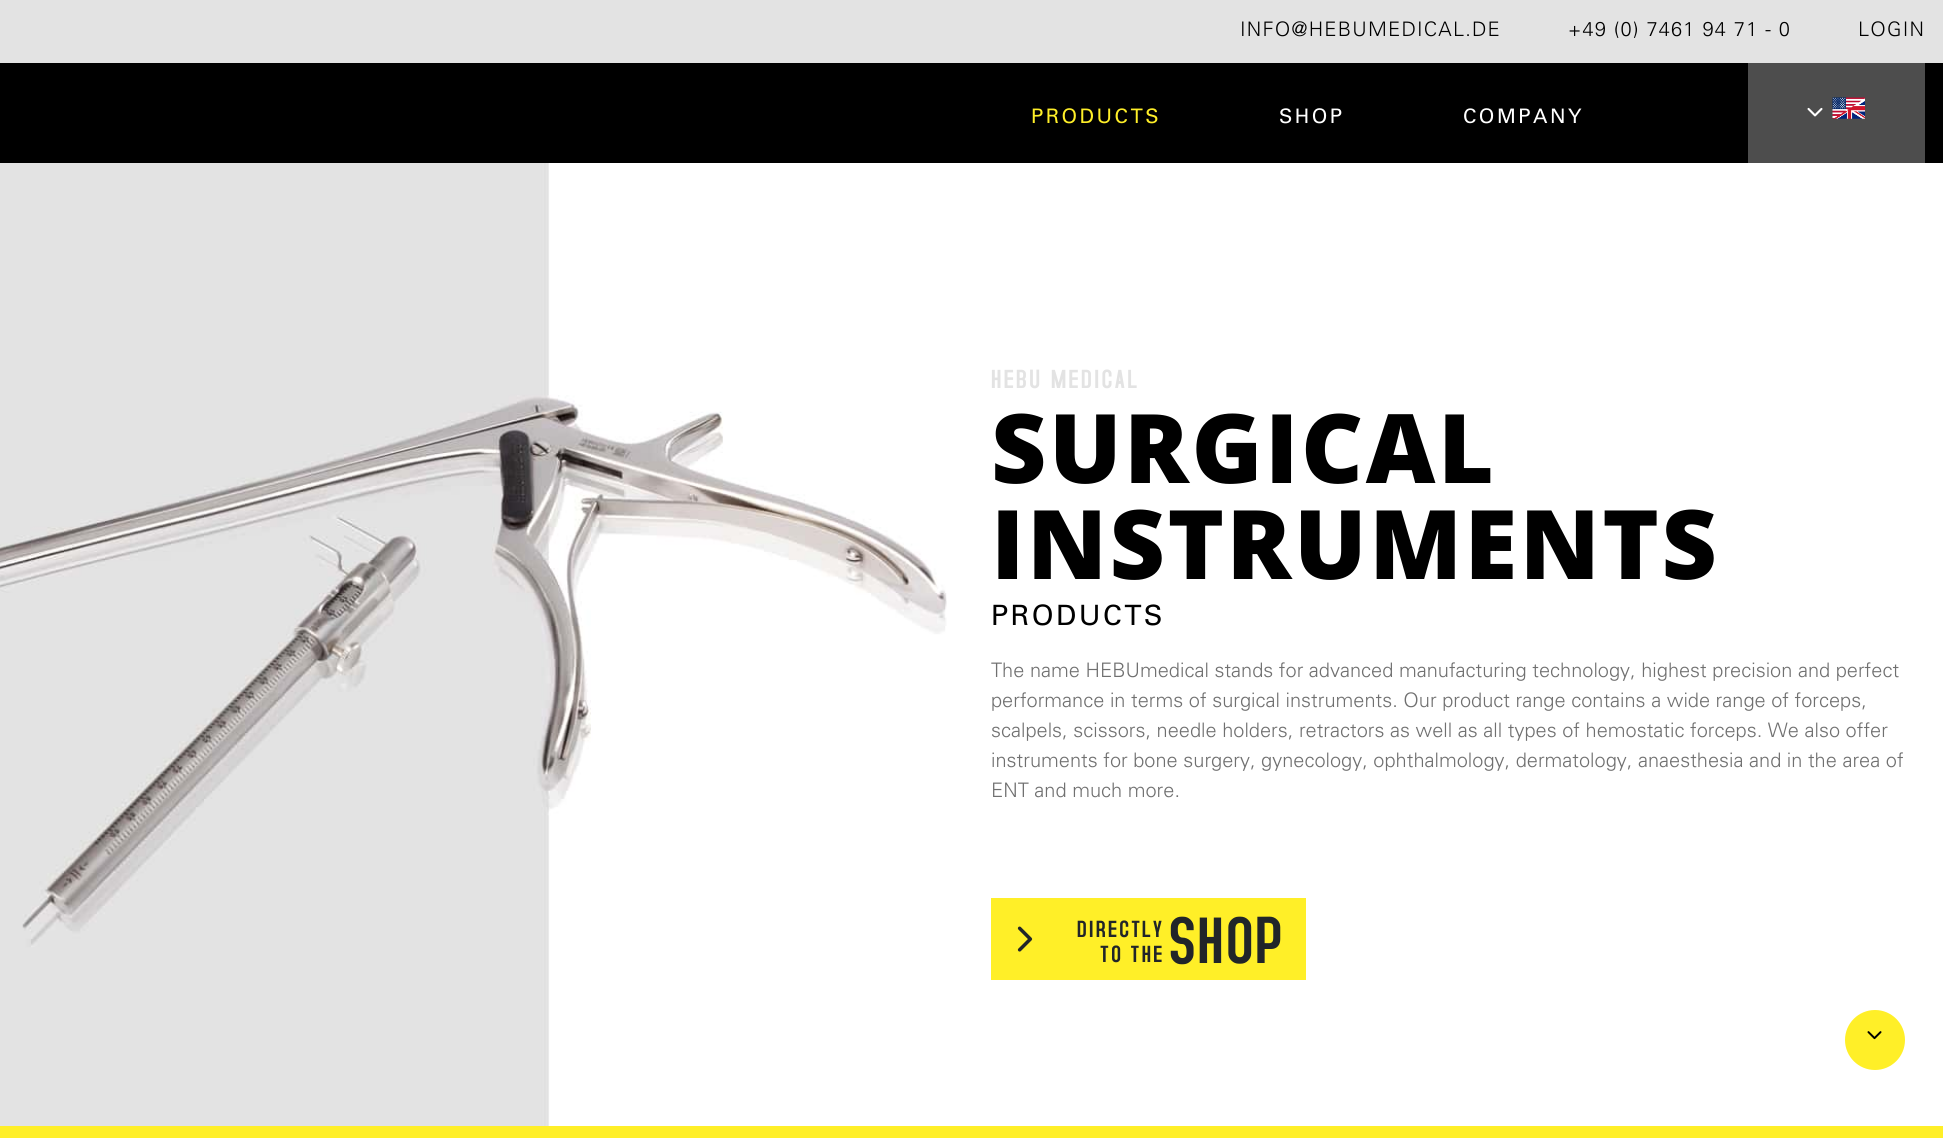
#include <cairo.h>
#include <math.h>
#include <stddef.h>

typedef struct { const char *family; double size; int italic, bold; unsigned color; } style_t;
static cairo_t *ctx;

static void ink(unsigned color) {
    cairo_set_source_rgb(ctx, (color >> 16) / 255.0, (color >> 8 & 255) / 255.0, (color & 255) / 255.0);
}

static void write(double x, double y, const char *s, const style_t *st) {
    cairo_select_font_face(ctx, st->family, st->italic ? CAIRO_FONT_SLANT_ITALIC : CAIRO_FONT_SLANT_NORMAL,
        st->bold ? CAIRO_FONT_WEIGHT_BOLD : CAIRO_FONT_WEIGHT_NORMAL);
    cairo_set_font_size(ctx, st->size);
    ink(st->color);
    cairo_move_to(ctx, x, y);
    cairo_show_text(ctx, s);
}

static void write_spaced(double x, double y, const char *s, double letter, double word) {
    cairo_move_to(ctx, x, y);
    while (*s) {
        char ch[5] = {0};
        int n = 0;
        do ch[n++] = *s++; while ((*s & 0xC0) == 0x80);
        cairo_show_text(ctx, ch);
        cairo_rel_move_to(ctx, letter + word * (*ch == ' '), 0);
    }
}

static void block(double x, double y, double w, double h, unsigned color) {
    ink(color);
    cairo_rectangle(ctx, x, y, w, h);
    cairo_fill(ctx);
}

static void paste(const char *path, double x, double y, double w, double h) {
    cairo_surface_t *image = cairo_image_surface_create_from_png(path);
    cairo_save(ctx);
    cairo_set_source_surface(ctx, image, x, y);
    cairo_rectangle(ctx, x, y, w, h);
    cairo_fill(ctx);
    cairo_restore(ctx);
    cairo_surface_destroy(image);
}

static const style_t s1 = {"Univers Light", 20, 0, 0, 0x707070};

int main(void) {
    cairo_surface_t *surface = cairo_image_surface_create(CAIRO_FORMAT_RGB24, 1943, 1138);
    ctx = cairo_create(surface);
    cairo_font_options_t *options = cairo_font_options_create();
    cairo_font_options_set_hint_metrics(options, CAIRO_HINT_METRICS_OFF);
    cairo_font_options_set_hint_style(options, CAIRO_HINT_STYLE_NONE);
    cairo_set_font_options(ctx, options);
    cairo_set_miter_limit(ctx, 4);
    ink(0xffffff);
    cairo_paint(ctx);
    block(0, 0, 1943, 63, 0xe3e3e3);
    cairo_select_font_face(ctx, "Univers Light", CAIRO_FONT_SLANT_NORMAL, CAIRO_FONT_WEIGHT_NORMAL);
    cairo_set_font_size(ctx, 20);
    ink(0x000000);
    write_spaced(1240, 36, "INFO@HEBUMEDICAL.DE", 1.2, 0);
    write_spaced(1568, 36, "+49 (0) 7461 94 71 - 0", 1.2, 0);
    write_spaced(1858, 36, "LOGIN", 1.2, 0);
    block(0, 63, 1943, 100, 0x000000);
    cairo_select_font_face(ctx, "Univers", CAIRO_FONT_SLANT_NORMAL, CAIRO_FONT_WEIGHT_NORMAL);
    ink(0xffef28);
    write_spaced(1031, 123, "PRODUCTS", 2.5, 0);
    ink(0xffffff);
    write_spaced(1279, 123, "SHOP", 2.5, 0);
    write_spaced(1463, 123, "COMPANY", 2.5, 0);
    block(1748, 63, 177, 100, 0x4d4d4d);
    paste("pic1.png", 1807, 107, 16, 10);
    paste("pic2.png", 1832, 97, 33, 22);
    paste("pic3.png", 0, 163, 947, 963);
    block(0, 1126, 1943, 12, 0xffef28);
    cairo_select_font_face(ctx, "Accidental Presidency", CAIRO_FONT_SLANT_NORMAL, CAIRO_FONT_WEIGHT_NORMAL);
    cairo_set_font_size(ctx, 28);
    ink(0xe3e3e3);
    write_spaced(991, 388, "HEBU MEDICAL", 2.5, 0);
    cairo_select_font_face(ctx, "Open Sans ExtraBold", CAIRO_FONT_SLANT_NORMAL, CAIRO_FONT_WEIGHT_NORMAL);
    cairo_set_font_size(ctx, 96);
    ink(0x000000);
    write_spaced(991, 483, "SURGICAL", 2.5, 0);
    write_spaced(991, 579, "INSTRUMENTS", 2.5, 0);
    cairo_select_font_face(ctx, "Univers", CAIRO_FONT_SLANT_NORMAL, CAIRO_FONT_WEIGHT_NORMAL);
    cairo_set_font_size(ctx, 28);
    write_spaced(991, 625, "PRODUCTS", 2.5, 0);
    write(991, 677, "The name HEBUmedical stands for advanced manufacturing technology, highest precision and perfect", &s1);
    write(991, 707, "performance in terms of surgical instruments. Our product range contains a wide range of forceps,", &s1);
    write(991, 737, "scalpels, scissors, needle holders, retractors as well as all types of hemostatic forceps. We also offer", &s1);
    write(991, 767, "instruments for bone surgery, gynecology, ophthalmology, dermatology, anaesthesia and in the area of", &s1);
    write(991, 797, "ENT and much more.", &s1);
    block(991, 898, 315, 82, 0xffef28);
    paste("pic4.png", 1017, 926, 16, 26);
    cairo_select_font_face(ctx, "Accidental Presidency", CAIRO_FONT_SLANT_NORMAL, CAIRO_FONT_WEIGHT_NORMAL);
    cairo_set_font_size(ctx, 25);
    ink(0x212529);
    write_spaced(1077, 937, "DIRECTLY", 2.5, 0);
    write_spaced(1100, 962, "TO THE", 2.5, 0);
    cairo_set_font_size(ctx, 70);
    write_spaced(1169, 963, "SHOP", 2.5, 0);
    ink(0xffef28);
    cairo_new_path(ctx);
    cairo_arc(ctx, 1875, 1040, 30, 0, 2 * M_PI);
    cairo_fill(ctx);
    paste("pic5.png", 1867, 1031, 15, 9);
    cairo_surface_write_to_png(surface, "screenshot.png");
    cairo_font_options_destroy(options);
    cairo_destroy(ctx);
    cairo_surface_destroy(surface);
    return 0;
}
